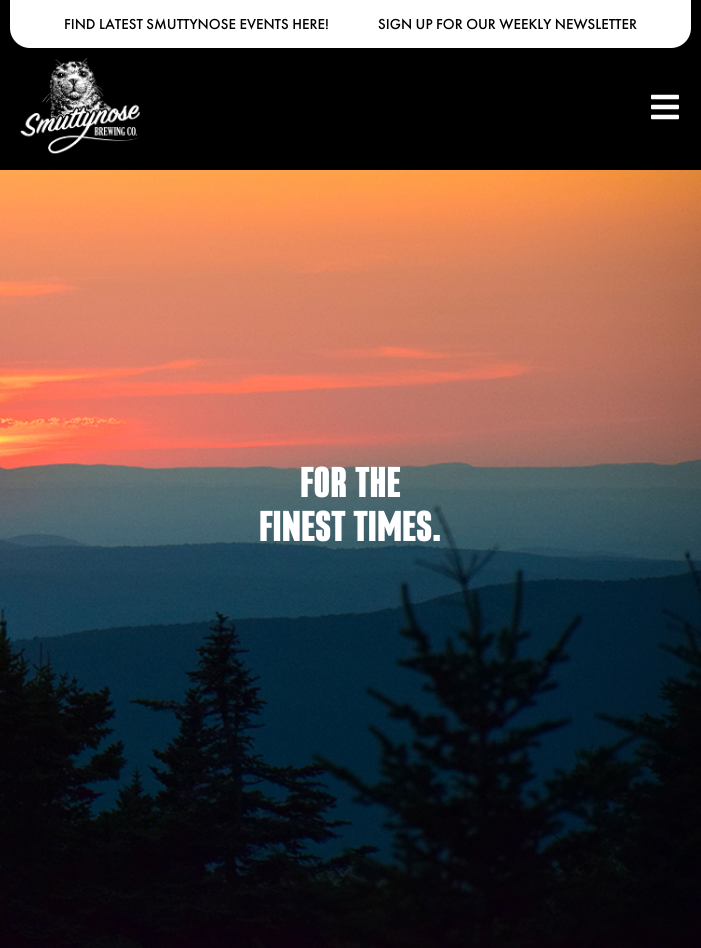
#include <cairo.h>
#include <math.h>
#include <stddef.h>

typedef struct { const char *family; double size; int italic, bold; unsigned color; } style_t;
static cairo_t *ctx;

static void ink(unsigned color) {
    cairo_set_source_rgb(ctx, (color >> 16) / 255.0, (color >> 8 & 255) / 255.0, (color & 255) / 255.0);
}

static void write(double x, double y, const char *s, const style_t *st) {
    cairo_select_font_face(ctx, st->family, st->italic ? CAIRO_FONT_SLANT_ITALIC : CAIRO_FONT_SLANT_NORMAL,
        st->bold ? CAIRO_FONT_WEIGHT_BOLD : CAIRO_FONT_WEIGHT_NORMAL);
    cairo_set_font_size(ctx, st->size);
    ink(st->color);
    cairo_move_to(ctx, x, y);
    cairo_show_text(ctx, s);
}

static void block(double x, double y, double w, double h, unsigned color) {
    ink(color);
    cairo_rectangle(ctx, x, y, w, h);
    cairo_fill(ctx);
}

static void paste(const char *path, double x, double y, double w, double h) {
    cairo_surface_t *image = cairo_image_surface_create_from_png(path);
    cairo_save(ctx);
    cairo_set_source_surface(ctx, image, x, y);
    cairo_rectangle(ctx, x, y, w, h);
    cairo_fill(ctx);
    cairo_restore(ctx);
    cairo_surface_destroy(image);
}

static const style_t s1 = {"Futura PT Medium", 15, 0, 0, 0x000000};
static const style_t s2 = {"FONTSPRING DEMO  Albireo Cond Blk", 44, 0, 0, 0xffffff};

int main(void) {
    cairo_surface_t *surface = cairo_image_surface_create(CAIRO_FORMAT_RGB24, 701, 948);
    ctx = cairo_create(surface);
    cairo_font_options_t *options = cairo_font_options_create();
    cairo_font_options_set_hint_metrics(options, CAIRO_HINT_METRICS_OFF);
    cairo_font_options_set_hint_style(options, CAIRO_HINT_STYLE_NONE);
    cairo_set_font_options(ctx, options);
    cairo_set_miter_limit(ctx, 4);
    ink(0xffffff);
    cairo_paint(ctx);
    block(0, 0, 701, 170, 0x000000);
    ink(0xffffff);
    cairo_new_path(ctx);
    cairo_move_to(ctx, 10, 0);
    cairo_line_to(ctx, 691, 0);
    cairo_line_to(ctx, 691, 28);
    cairo_curve_to(ctx, 691, 39, 682, 48, 671, 48);
    cairo_line_to(ctx, 30, 48);
    cairo_curve_to(ctx, 19, 48, 10, 39, 10, 28);
    cairo_close_path(ctx);
    cairo_fill(ctx);
    write(64, 29, "FIND LATEST SMUTTYNOSE EVENTS HERE!", &s1);
    write(378, 29, "SIGN UP FOR OUR WEEKLY NEWSLETTER", &s1);
    paste("pic1.png", 20, 58, 120, 96);
    paste("pic2.png", 651, 94, 28, 26);
    paste("pic3.png", 0, 170, 701, 778);
    write(300, 497, "FOR THE", &s2);
    write(259, 541, "FINEST TIMES.", &s2);
    cairo_surface_write_to_png(surface, "screenshot.png");
    cairo_font_options_destroy(options);
    cairo_destroy(ctx);
    cairo_surface_destroy(surface);
    return 0;
}
